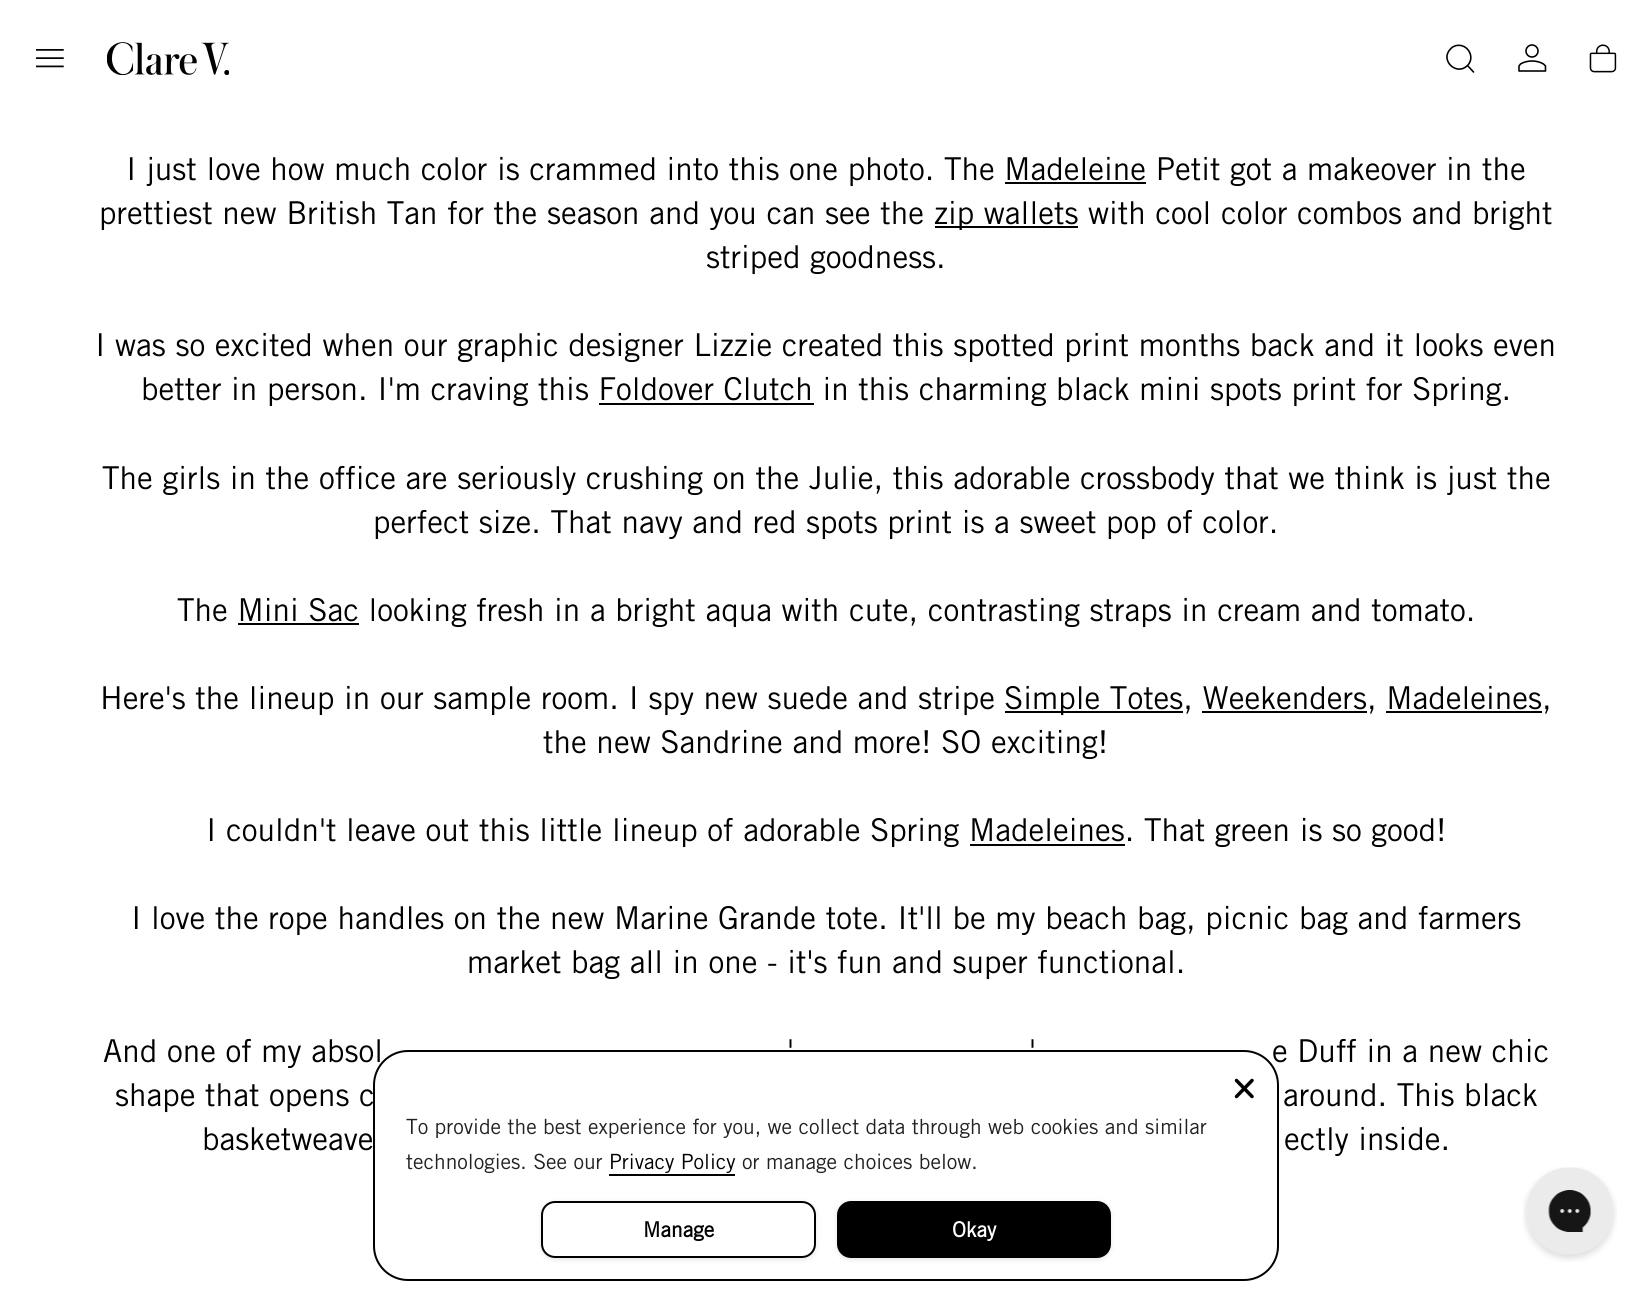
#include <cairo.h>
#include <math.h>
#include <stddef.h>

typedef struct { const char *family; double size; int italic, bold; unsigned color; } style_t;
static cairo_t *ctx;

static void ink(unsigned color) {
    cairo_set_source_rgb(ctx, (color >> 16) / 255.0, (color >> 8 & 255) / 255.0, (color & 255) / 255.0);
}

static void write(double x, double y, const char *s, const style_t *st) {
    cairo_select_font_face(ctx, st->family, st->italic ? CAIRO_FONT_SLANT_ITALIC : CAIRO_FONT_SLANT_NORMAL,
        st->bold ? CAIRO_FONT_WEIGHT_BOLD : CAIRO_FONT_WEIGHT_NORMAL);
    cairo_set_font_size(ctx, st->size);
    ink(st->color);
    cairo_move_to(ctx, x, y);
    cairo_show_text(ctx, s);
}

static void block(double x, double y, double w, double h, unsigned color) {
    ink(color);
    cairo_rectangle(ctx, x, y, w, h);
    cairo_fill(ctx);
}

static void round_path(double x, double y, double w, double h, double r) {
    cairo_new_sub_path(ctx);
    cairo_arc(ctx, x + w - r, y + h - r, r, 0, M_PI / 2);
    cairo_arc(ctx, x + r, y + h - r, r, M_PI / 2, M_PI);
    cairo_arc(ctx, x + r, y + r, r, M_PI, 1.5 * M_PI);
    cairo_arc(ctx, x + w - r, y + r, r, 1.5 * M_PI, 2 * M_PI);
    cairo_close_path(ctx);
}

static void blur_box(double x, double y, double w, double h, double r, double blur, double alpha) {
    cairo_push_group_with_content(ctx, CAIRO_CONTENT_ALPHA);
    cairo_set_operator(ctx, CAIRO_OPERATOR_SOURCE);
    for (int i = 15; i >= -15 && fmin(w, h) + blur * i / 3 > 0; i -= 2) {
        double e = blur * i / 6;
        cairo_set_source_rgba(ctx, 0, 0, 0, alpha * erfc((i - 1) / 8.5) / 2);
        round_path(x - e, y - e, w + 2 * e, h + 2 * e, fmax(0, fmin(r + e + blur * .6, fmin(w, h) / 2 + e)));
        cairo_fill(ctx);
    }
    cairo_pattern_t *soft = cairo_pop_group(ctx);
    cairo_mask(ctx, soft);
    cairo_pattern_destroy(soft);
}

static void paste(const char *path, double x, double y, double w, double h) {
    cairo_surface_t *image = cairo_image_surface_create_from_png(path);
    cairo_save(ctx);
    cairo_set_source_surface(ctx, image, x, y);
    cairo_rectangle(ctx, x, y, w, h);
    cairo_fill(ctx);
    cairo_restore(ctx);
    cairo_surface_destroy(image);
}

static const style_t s1 = {"Trade Gothic", 31.5, 0, 0, 0x000000};
static const style_t s2 = {"Trade Gothic", 21, 0, 0, 0x212121};
static const style_t s3 = {"Trade Gothic", 21, 0, 0, 0x000000};
static const style_t s4 = {"Trade Gothic", 21, 0, 1, 0x000000};
static const style_t s5 = {"Trade Gothic", 21, 0, 1, 0xffffff};

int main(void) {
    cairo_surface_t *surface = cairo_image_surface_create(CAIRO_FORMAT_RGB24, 1651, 1302);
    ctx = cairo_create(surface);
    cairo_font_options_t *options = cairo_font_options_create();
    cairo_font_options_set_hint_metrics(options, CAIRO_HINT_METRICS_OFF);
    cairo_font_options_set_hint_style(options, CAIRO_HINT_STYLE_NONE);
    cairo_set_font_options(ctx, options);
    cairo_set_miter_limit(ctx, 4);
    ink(0xffffff);
    cairo_paint(ctx);
    paste("pic1.png", 36, 49, 28, 19);
    paste("pic2.png", 107, 42, 122, 33);
    cairo_new_path(ctx);
    cairo_move_to(ctx, 1473.5, 72);
    cairo_line_to(ctx, 1467.5, 65.5);
    cairo_move_to(ctx, 1467.5, 65.5);
    cairo_curve_to(ctx, 1475.5, 57.5, 1468, 43.5, 1456.5, 45.5);
    cairo_curve_to(ctx, 1454.5, 46, 1452, 47, 1450.5, 49);
    cairo_curve_to(ctx, 1439.5, 60, 1456.5, 76.5, 1467.5, 65.5);
    cairo_close_path(ctx);
    ink(0x000000);
    cairo_set_line_width(ctx, 1.6);
    cairo_set_line_cap(ctx, CAIRO_LINE_CAP_ROUND);
    cairo_set_line_join(ctx, CAIRO_LINE_JOIN_ROUND);
    cairo_stroke(ctx);
    cairo_arc(ctx, 1532, 51, 6, 0, 2 * M_PI);
    cairo_set_line_cap(ctx, CAIRO_LINE_CAP_BUTT);
    cairo_set_line_join(ctx, CAIRO_LINE_JOIN_MITER);
    cairo_stroke(ctx);
    cairo_new_path(ctx);
    cairo_move_to(ctx, 1519, 66);
    cairo_line_to(ctx, 1519, 71);
    cairo_line_to(ctx, 1545.5, 71);
    cairo_line_to(ctx, 1545.5, 66);
    cairo_line_to(ctx, 1543.5, 64);
    cairo_curve_to(ctx, 1537, 60, 1527, 60, 1520.5, 64);
    cairo_close_path(ctx);
    cairo_set_line_join(ctx, CAIRO_LINE_JOIN_ROUND);
    cairo_stroke(ctx);
    paste("pic3.png", 1589, 44, 28, 29);
    write(126, 180, "I just love how much color is crammed into this one photo. The Madeleine Petit got a makeover in the", &s1);
    block(1005, 182, 141, 2, 0x000000);
    write(99, 224, "prettiest new British Tan for the season and you can see the", &s1);
    block(935, 226, 143, 2, 0x000000);
    write(934, 224, "zip wallets with cool color combos and bright", &s1);
    write(706, 268, "striped goodness.", &s1);
    write(95, 356, "I was so excited when our graphic designer Lizzie created this spotted print months back and it looks even", &s1);
    write(141, 400, "better in person. I'm craving this Foldover Clutch in this charming black mini spots print for Spring.", &s1);
    block(599, 403, 215, 2, 0x000000);
    write(102, 489, "The girls in the office are seriously crushing on the Julie, this adorable crossbody that we think is just the", &s1);
    write(373, 533, "perfect size. That navy and red spots print is a sweet pop of color.", &s1);
    write(177, 621, "The Mini Sac looking fresh in a bright aqua with cute, contrasting straps in cream and tomato.", &s1);
    block(238, 623, 121, 2, 0x000000);
    write(100, 709, "Here's the lineup in our sample room. I spy new suede and stripe", &s1);
    block(1005, 711, 178, 2, 0x000000);
    write(1004, 709, "Simple Totes, Weekenders, Madeleines,", &s1);
    block(1202, 711, 165, 2, 0x000000);
    block(1386, 711, 156, 2, 0x000000);
    write(543, 753, "the new Sandrine and more! SO exciting!", &s1);
    write(206, 841, "I couldn't leave out this little lineup of adorable Spring Madeleines. That green is so good!", &s1);
    block(970, 844, 155, 2, 0x000000);
    write(131, 929, "I love the rope handles on the new Marine Grande tote. It'll be my beach bag, picnic bag and farmers", &s1);
    write(467, 973, "market bag all in one - it's fun and super functional.", &s1);
    write(103, 1062, "And one of my absol", &s1);
    write(787, 1062, "'", &s1);
    write(1029, 1062, "'", &s1);
    write(1272, 1062, "e Duff in a new chic", &s1);
    write(115, 1106, "shape that opens c", &s1);
    write(1283, 1106, "around. This black", &s1);
    write(202, 1150, "basketweave", &s1);
    write(1284, 1150, "ectly inside.", &s1);
    paste("pic4.png", 1523, 1167, 94, 95);
    ink(0xffffff);
    round_path(374, 1051, 904, 229, 34);
    cairo_fill_preserve(ctx);
    ink(0x000000);
    cairo_set_line_width(ctx, 2);
    cairo_set_line_join(ctx, CAIRO_LINE_JOIN_MITER);
    cairo_stroke(ctx);
    cairo_new_path(ctx);
    cairo_move_to(ctx, 1252, 1080.5);
    cairo_line_to(ctx, 1236.5, 1096.5);
    cairo_move_to(ctx, 1236.5, 1080.5);
    cairo_line_to(ctx, 1252, 1096.5);
    cairo_set_line_width(ctx, 3.5);
    cairo_set_line_cap(ctx, CAIRO_LINE_CAP_ROUND);
    cairo_set_line_join(ctx, CAIRO_LINE_JOIN_ROUND);
    cairo_stroke(ctx);
    write(406, 1134, "To provide the best experience for you, we collect data through web cookies and similar", &s2);
    write(406, 1169, "technologies. See our", &s2);
    write(609, 1169, "Privacy Policy", &s3);
    block(609, 1174, 126, 2, 0x000000);
    write(742, 1169, "or manage choices below.", &s2);
    ink(0x000000);
    blur_box(541, 1202, 275, 58, 14, 2.5, 0.1);
    ink(0xffffff);
    round_path(542, 1202, 273, 55, 13);
    cairo_fill_preserve(ctx);
    ink(0x000000);
    cairo_set_line_width(ctx, 2);
    cairo_set_line_cap(ctx, CAIRO_LINE_CAP_BUTT);
    cairo_set_line_join(ctx, CAIRO_LINE_JOIN_MITER);
    cairo_stroke(ctx);
    write(643, 1237, "Manage", &s4);
    ink(0x000000);
    blur_box(837, 1202, 274, 58, 14, 2.5, 0.1);
    ink(0x000000);
    round_path(838, 1202, 272, 55, 13);
    cairo_fill_preserve(ctx);
    cairo_stroke(ctx);
    write(952, 1237, "Okay", &s5);
    cairo_surface_write_to_png(surface, "screenshot.png");
    cairo_font_options_destroy(options);
    cairo_destroy(ctx);
    cairo_surface_destroy(surface);
    return 0;
}
